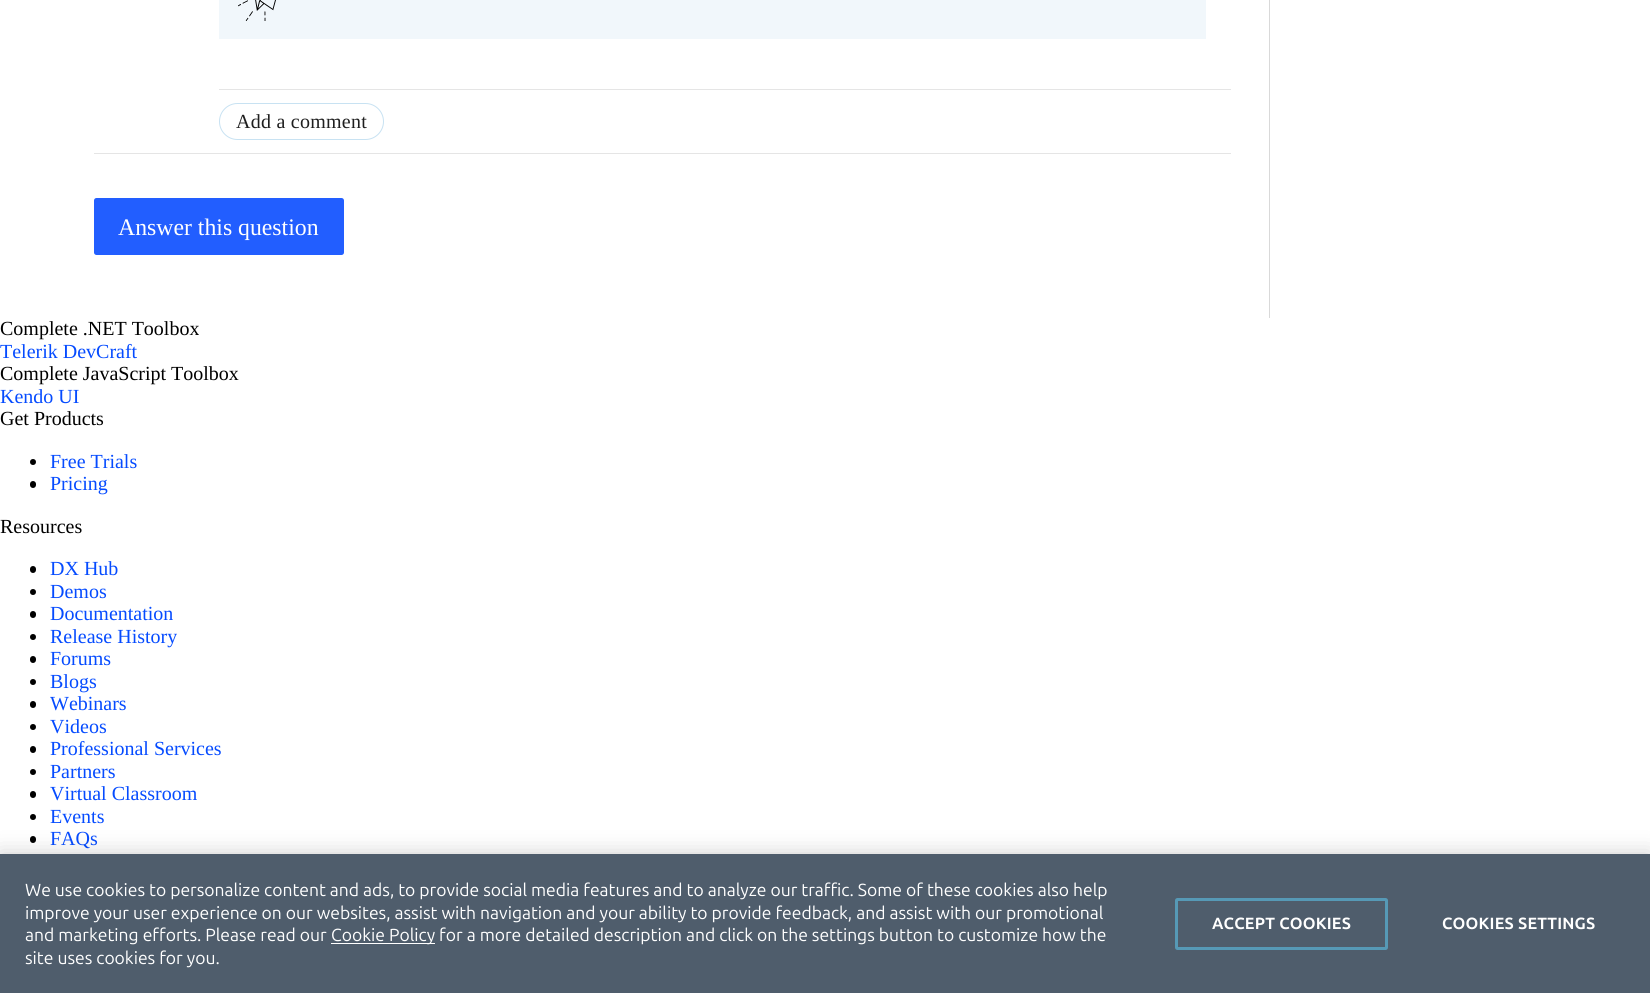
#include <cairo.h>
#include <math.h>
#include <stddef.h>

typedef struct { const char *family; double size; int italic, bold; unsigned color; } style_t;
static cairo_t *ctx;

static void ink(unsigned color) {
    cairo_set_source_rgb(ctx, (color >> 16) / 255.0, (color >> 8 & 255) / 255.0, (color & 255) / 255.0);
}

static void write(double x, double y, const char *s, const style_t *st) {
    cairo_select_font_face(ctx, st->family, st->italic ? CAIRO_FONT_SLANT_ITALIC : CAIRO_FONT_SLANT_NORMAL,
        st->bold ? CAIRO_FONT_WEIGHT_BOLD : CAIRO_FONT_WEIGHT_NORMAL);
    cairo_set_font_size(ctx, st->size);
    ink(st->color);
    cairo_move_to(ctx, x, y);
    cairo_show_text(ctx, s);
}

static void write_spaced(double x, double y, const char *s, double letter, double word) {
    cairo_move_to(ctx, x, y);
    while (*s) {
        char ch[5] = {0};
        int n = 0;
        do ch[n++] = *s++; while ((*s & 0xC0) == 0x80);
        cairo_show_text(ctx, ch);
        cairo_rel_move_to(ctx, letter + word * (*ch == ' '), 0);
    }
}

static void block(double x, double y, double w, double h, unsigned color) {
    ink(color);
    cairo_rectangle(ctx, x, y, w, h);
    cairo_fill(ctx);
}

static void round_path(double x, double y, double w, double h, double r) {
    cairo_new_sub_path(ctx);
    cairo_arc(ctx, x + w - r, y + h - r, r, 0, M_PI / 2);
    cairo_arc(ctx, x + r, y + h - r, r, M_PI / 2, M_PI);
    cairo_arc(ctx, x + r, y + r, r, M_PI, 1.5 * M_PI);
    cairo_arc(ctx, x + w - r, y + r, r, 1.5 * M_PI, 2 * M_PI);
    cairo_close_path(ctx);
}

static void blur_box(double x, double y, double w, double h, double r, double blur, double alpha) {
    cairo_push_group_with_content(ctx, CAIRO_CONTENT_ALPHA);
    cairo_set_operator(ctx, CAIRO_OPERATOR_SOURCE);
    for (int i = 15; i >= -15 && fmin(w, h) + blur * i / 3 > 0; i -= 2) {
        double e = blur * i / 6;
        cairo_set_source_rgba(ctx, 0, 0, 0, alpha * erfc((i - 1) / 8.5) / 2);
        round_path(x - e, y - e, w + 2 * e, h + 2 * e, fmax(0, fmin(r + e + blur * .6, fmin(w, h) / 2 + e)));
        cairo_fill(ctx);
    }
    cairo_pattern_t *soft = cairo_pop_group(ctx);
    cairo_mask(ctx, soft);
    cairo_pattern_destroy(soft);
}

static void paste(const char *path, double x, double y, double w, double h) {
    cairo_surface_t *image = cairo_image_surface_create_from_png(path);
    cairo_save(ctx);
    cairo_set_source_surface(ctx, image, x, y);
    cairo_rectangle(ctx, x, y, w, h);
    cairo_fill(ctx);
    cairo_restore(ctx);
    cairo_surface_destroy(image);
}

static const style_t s1 = {"Liberation Serif", 23.75, 0, 0, 0xffffff};
static const style_t s2 = {"Liberation Serif", 20, 0, 0, 0x000000};
static const style_t s3 = {"Liberation Serif", 20, 0, 0, 0x054bff};
static const style_t s4 = {"Ubuntu", 17.5, 0, 0, 0xffffff};

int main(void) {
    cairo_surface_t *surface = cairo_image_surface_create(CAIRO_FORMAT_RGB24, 1650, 993);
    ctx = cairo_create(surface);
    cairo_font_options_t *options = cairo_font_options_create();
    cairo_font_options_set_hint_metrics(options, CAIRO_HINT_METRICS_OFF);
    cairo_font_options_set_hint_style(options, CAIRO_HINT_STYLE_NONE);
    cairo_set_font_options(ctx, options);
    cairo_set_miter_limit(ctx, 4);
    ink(0xffffff);
    cairo_paint(ctx);
    block(94, 153, 1137, 1, 0xe5e5e5);
    block(219, 0, 987, 39, 0xf1f7fb);
    paste("pic1.png", 238, 0, 38, 21);
    block(219, 89, 1012, 1, 0xe5e5e5);
    round_path(219.5, 103.5, 164, 36, 18);
    ink(0xc8e2f2);
    cairo_set_line_width(ctx, 1);
    cairo_stroke(ctx);
    cairo_select_font_face(ctx, "Liberation Serif", CAIRO_FONT_SLANT_NORMAL, CAIRO_FONT_WEIGHT_NORMAL);
    cairo_set_font_size(ctx, 20);
    ink(0x1f1f1f);
    write_spaced(236, 128, "Add a comment", 0.25, 0);
    ink(0x225eff);
    round_path(94, 198, 250, 57, 2.5);
    cairo_fill(ctx);
    write(118, 235, "Answer this question", &s1);
    block(1269, 0, 1, 318, 0xd9d9d9);
    write(0, 335, "Complete .NET Toolbox", &s2);
    write(0, 358, "Telerik DevCraft", &s3);
    write(0, 380, "Complete JavaScript Toolbox", &s2);
    write(0, 403, "Kendo UI", &s3);
    write(0, 425, "Get Products", &s2);
    cairo_new_path(ctx);
    cairo_arc(ctx, 33, 462, 3, 0, 2 * M_PI);
    cairo_fill(ctx);
    write(50, 468, "Free Trials", &s3);
    ink(0x000000);
    round_path(30, 481, 6, 7, 3);
    cairo_fill(ctx);
    write(50, 490, "Pricing", &s3);
    write(0, 533, "Resources", &s2);
    round_path(30, 566, 6, 7, 3);
    cairo_fill(ctx);
    write(50, 575, "DX Hub", &s3);
    ink(0x000000);
    cairo_new_path(ctx);
    cairo_arc(ctx, 33, 592, 3, 0, 2 * M_PI);
    cairo_fill(ctx);
    write(50, 598, "Demos", &s3);
    ink(0x000000);
    round_path(30, 611, 6, 7, 3);
    cairo_fill(ctx);
    write(50, 620, "Documentation", &s3);
    ink(0x000000);
    cairo_new_path(ctx);
    cairo_arc(ctx, 33, 637, 3, 0, 2 * M_PI);
    cairo_fill(ctx);
    write(50, 643, "Release History", &s3);
    ink(0x000000);
    round_path(30, 656, 6, 7, 3);
    cairo_fill(ctx);
    write(50, 665, "Forums", &s3);
    ink(0x000000);
    cairo_new_path(ctx);
    cairo_arc(ctx, 33, 682, 3, 0, 2 * M_PI);
    cairo_fill(ctx);
    write(50, 688, "Blogs", &s3);
    ink(0x000000);
    round_path(30, 701, 6, 7, 3);
    cairo_fill(ctx);
    write(50, 710, "Webinars", &s3);
    ink(0x000000);
    cairo_new_path(ctx);
    cairo_arc(ctx, 33, 727, 3, 0, 2 * M_PI);
    cairo_fill(ctx);
    write(50, 733, "Videos", &s3);
    ink(0x000000);
    round_path(30, 746, 6, 7, 3);
    cairo_fill(ctx);
    write(50, 755, "Professional Services", &s3);
    ink(0x000000);
    cairo_new_path(ctx);
    cairo_arc(ctx, 33, 772, 3, 0, 2 * M_PI);
    cairo_fill(ctx);
    write(50, 778, "Partners", &s3);
    ink(0x000000);
    round_path(30, 791, 6, 7, 3);
    cairo_fill(ctx);
    write(50, 800, "Virtual Classroom", &s3);
    ink(0x000000);
    cairo_new_path(ctx);
    cairo_arc(ctx, 33, 817, 3, 0, 2 * M_PI);
    cairo_fill(ctx);
    write(50, 823, "Events", &s3);
    ink(0x000000);
    round_path(30, 836, 6, 7, 3);
    cairo_fill(ctx);
    write(50, 845, "FAQs", &s3);
    ink(0x000000);
    blur_box(0, 854, 1650, 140, 0, 11, 0.2);
    block(0, 854, 1650, 139, 0x4f5d6c);
    write(25, 896, "We use cookies to personalize content and ads, to provide social media features and to analyze our traffic. Some of these cookies also help", &s4);
    write(25, 919, "improve your user experience on our websites, assist with navigation and your ability to provide feedback, and assist with our promotional", &s4);
    write(25, 941, "and marketing efforts. Please read our", &s4);
    block(331, 943, 104, 1, 0xffffff);
    write(331, 941, "Cookie Policy for a more detailed description and click on the settings button to customize how the", &s4);
    write(25, 964, "site uses cookies for you.", &s4);
    round_path(1176.5, 899.5, 210, 49, 1);
    ink(0x5699b6);
    cairo_set_line_width(ctx, 3);
    cairo_stroke(ctx);
    cairo_select_font_face(ctx, "Ubuntu", CAIRO_FONT_SLANT_NORMAL, CAIRO_FONT_WEIGHT_BOLD);
    cairo_set_font_size(ctx, 16.25);
    ink(0xffffff);
    write_spaced(1212, 929, "ACCEPT COOKIES", 0.2, 0);
    write_spaced(1442, 929, "COOKIES SETTINGS", 0.2, 0);
    cairo_surface_write_to_png(surface, "screenshot.png");
    cairo_font_options_destroy(options);
    cairo_destroy(ctx);
    cairo_surface_destroy(surface);
    return 0;
}
